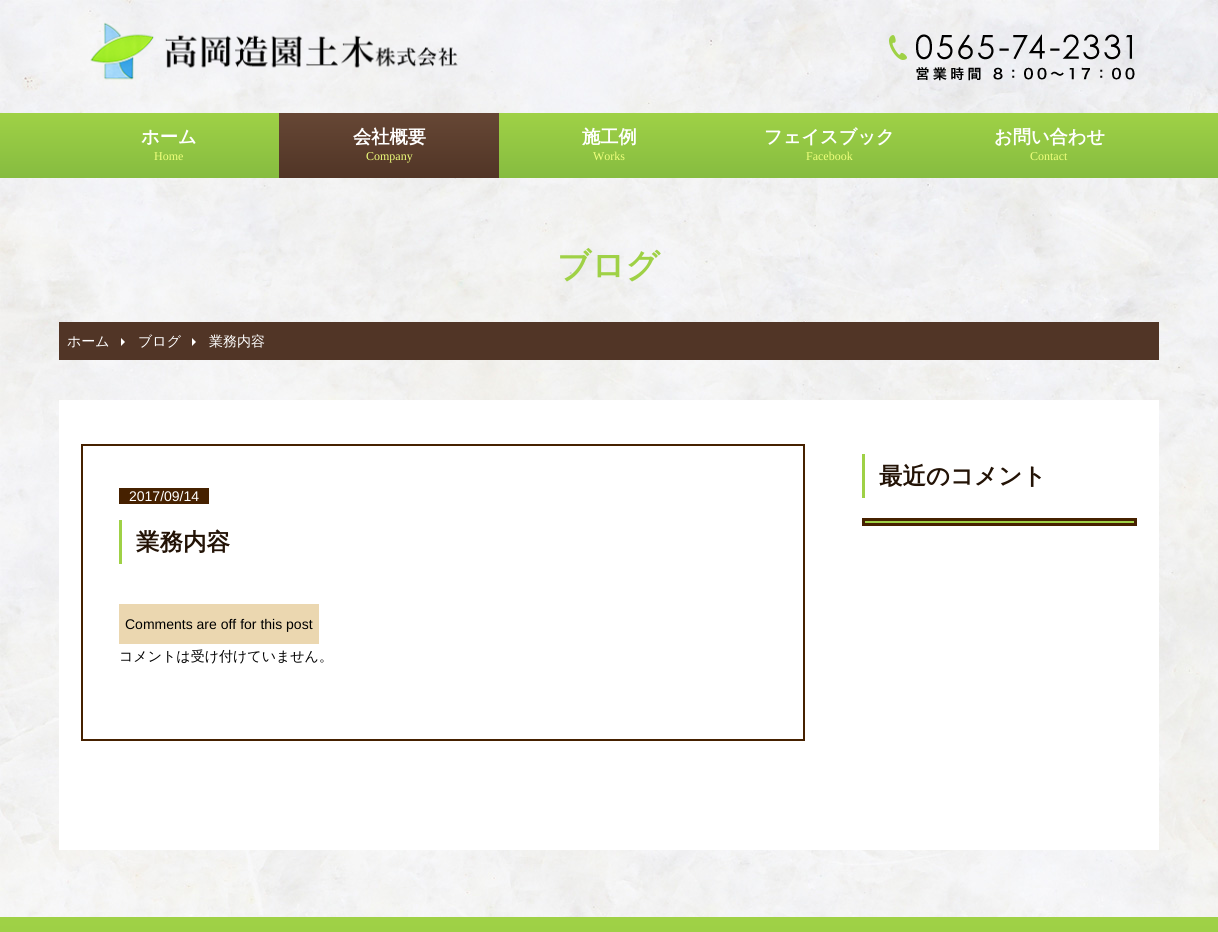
#include <cairo.h>
#include <math.h>
#include <stddef.h>

typedef struct { const char *family; double size; int italic, bold; unsigned color; } style_t;
static cairo_t *ctx;

static void ink(unsigned color) {
    cairo_set_source_rgb(ctx, (color >> 16) / 255.0, (color >> 8 & 255) / 255.0, (color & 255) / 255.0);
}

static void write(double x, double y, const char *s, const style_t *st) {
    cairo_select_font_face(ctx, st->family, st->italic ? CAIRO_FONT_SLANT_ITALIC : CAIRO_FONT_SLANT_NORMAL,
        st->bold ? CAIRO_FONT_WEIGHT_BOLD : CAIRO_FONT_WEIGHT_NORMAL);
    cairo_set_font_size(ctx, st->size);
    ink(st->color);
    cairo_move_to(ctx, x, y);
    cairo_show_text(ctx, s);
}

static void block(double x, double y, double w, double h, unsigned color) {
    ink(color);
    cairo_rectangle(ctx, x, y, w, h);
    cairo_fill(ctx);
}

static void paste(const char *path, double x, double y, double w, double h) {
    cairo_surface_t *image = cairo_image_surface_create_from_png(path);
    cairo_save(ctx);
    cairo_set_source_surface(ctx, image, x, y);
    cairo_rectangle(ctx, x, y, w, h);
    cairo_fill(ctx);
    cairo_restore(ctx);
    cairo_surface_destroy(image);
}

static const style_t s1 = {"WenQuanYi Zen Hei", 18.25, 0, 1, 0xffffff};
static const style_t s2 = {"Liberation Serif", 12, 0, 0, 0xefff7b};
static const style_t s3 = {"WenQuanYi Zen Hei", 33.5, 0, 1, 0x9fd146};
static const style_t s4 = {"WenQuanYi Zen Hei Medium", 14, 0, 0, 0xffffff};
static const style_t s5 = {"WenQuanYi Zen Hei", 23.5, 0, 1, 0x231306};
static const style_t s6 = {"Liberation Sans", 14, 0, 0, 0xffffff};
static const style_t s7 = {"Liberation Sans", 14, 0, 0, 0x000000};
static const style_t s8 = {"WenQuanYi Zen Hei Medium", 14, 0, 0, 0x000000};

int main(void) {
    cairo_surface_t *surface = cairo_image_surface_create(CAIRO_FORMAT_RGB24, 1218, 932);
    ctx = cairo_create(surface);
    cairo_font_options_t *options = cairo_font_options_create();
    cairo_font_options_set_hint_metrics(options, CAIRO_HINT_METRICS_OFF);
    cairo_font_options_set_hint_style(options, CAIRO_HINT_STYLE_NONE);
    cairo_set_font_options(ctx, options);
    cairo_set_miter_limit(ctx, 4);
    cairo_pattern_t *gradient;
    ink(0xffffff);
    cairo_paint(ctx);
    paste("pic1.png", 0, 0, 1218, 917);
    paste("pic2.png", 90, 22, 368, 58);
    paste("pic3.png", 889, 34, 246, 47);
    gradient = cairo_pattern_create_linear(609, 113, 609, 178);
    cairo_pattern_add_color_stop_rgba(gradient, 0, 0.624, 0.82, 0.275, 1);
    cairo_pattern_add_color_stop_rgba(gradient, 1, 0.525, 0.737, 0.251, 1);
    cairo_set_source(ctx, gradient);
    cairo_pattern_destroy(gradient);
    cairo_rectangle(ctx, 0, 113, 1218, 65);
    cairo_fill(ctx);
    write(141, 143, "ホーム", &s1);
    write(154, 160, "Home", &s2);
    gradient = cairo_pattern_create_linear(389, 113, 389, 178);
    cairo_pattern_add_color_stop_rgba(gradient, 0, 0.4, 0.278, 0.208, 1);
    cairo_pattern_add_color_stop_rgba(gradient, 1, 0.318, 0.208, 0.149, 1);
    cairo_set_source(ctx, gradient);
    cairo_pattern_destroy(gradient);
    cairo_rectangle(ctx, 279, 113, 220, 65);
    cairo_fill(ctx);
    write(353, 143, "会社概要", &s1);
    write(366, 160, "Company", &s2);
    write(582, 143, "施工例", &s1);
    write(593, 160, "Works", &s2);
    write(764, 143, "フェイスブック", &s1);
    write(806, 160, "Facebook", &s2);
    write(994, 143, "お問い合わせ", &s1);
    write(1030, 160, "Contact", &s2);
    write(557, 277, "ブログ", &s3);
    block(59, 322, 1100, 38, 0x513526);
    write(67, 346, "ホーム", &s4);
    cairo_new_path(ctx);
    cairo_move_to(ctx, 121, 346);
    cairo_line_to(ctx, 121, 338);
    cairo_line_to(ctx, 125, 342);
    cairo_close_path(ctx);
    cairo_fill(ctx);
    write(138, 346, "ブログ", &s4);
    cairo_new_path(ctx);
    cairo_move_to(ctx, 192, 346);
    cairo_line_to(ctx, 192, 338);
    cairo_line_to(ctx, 196, 342);
    cairo_close_path(ctx);
    cairo_fill(ctx);
    write(209, 346, "業務内容", &s4);
    block(59, 400, 1100, 450, 0xffffff);
    block(862, 454, 3, 44, 0x9fd146);
    write(879, 484, "最近のコメント", &s5);
    block(862, 518, 275, 8, 0x462100);
    block(865, 521, 269, 2, 0x9fd146);
    cairo_rectangle(ctx, 82, 445, 722, 295);
    ink(0x462100);
    cairo_stroke(ctx);
    block(119, 488, 90, 16, 0x462100);
    write(129, 501, "2017/09/14", &s6);
    block(119, 520, 3, 44, 0x9fd146);
    write(136, 550, "業務内容", &s5);
    block(119, 604, 200, 40, 0xebd7b0);
    write(125, 629, "Comments are off for this post", &s7);
    write(119, 661, "コメントは受け付けていません。", &s8);
    gradient = cairo_pattern_create_linear(609, 917, 609, 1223);
    cairo_pattern_add_color_stop_rgba(gradient, 0, 0.624, 0.82, 0.275, 1);
    cairo_pattern_add_color_stop_rgba(gradient, 1, 0.525, 0.737, 0.251, 1);
    cairo_set_source(ctx, gradient);
    cairo_pattern_destroy(gradient);
    cairo_rectangle(ctx, 0, 917, 1218, 15);
    cairo_fill(ctx);
    cairo_surface_write_to_png(surface, "screenshot.png");
    cairo_font_options_destroy(options);
    cairo_destroy(ctx);
    cairo_surface_destroy(surface);
    return 0;
}
